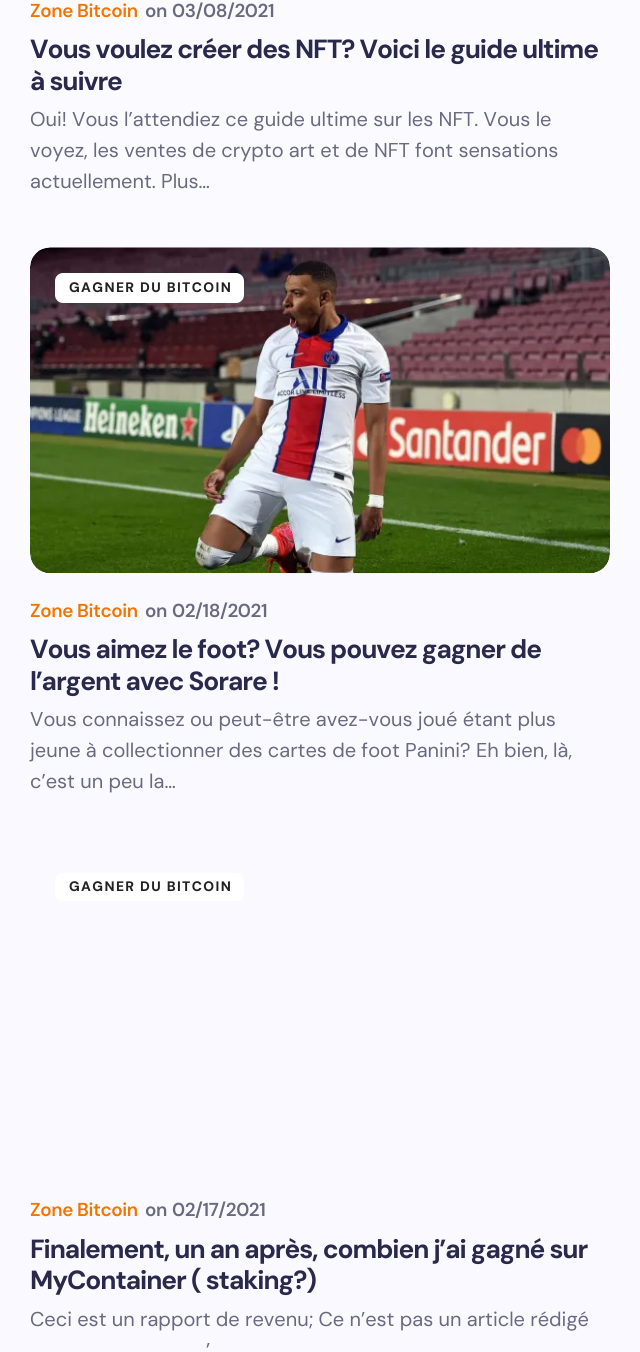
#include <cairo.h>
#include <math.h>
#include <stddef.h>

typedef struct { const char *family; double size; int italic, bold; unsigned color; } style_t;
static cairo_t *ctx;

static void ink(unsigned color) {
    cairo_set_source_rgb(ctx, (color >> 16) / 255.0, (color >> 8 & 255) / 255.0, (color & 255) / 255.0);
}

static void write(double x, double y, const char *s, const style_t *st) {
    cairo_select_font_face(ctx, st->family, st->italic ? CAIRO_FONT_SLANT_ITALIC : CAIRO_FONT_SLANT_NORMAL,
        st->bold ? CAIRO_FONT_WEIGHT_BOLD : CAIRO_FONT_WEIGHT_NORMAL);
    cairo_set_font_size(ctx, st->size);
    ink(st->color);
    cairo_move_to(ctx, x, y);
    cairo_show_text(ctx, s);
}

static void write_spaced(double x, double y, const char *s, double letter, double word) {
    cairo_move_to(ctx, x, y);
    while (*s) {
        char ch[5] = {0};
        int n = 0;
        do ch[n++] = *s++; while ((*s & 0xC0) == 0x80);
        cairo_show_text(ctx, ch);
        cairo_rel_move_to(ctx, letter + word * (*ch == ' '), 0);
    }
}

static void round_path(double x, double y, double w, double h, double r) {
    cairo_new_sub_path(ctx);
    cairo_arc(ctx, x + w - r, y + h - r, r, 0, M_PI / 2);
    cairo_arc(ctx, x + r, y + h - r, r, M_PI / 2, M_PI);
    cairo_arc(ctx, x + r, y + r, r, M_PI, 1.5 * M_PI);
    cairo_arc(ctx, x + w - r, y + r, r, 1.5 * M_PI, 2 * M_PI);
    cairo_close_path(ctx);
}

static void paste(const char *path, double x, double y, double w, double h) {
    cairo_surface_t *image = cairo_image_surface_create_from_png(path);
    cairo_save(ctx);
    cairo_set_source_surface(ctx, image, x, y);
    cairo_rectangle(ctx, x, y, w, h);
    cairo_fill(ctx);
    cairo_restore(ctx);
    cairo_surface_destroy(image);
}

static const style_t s1 = {"DM Sans", 20, 0, 0, 0x696981};

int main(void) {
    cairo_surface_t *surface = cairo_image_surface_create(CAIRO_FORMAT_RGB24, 640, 1352);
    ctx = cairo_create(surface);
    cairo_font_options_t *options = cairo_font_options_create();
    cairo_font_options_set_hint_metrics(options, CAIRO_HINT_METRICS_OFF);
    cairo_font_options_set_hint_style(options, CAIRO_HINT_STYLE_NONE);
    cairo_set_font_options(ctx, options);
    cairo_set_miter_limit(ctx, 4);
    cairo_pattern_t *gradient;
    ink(0xffffff);
    cairo_paint(ctx);
    gradient = cairo_pattern_create_linear(320, -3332, 320, 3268);
    cairo_pattern_add_color_stop_rgba(gradient, 0, 0.992, 0.992, 1, 1);
    cairo_pattern_add_color_stop_rgba(gradient, 1, 0.973, 0.969, 1, 1);
    cairo_set_source(ctx, gradient);
    cairo_pattern_destroy(gradient);
    cairo_rectangle(ctx, 0, 0, 640, 1352);
    cairo_fill(ctx);
    cairo_select_font_face(ctx, "DM Sans SemiBold", CAIRO_FONT_SLANT_NORMAL, CAIRO_FONT_WEIGHT_NORMAL);
    cairo_set_font_size(ctx, 18.75);
    ink(0xf27500);
    write_spaced(30, 17, "Zone Bitcoin", -0.4, 0);
    ink(0x696981);
    write_spaced(145, 17, "on", -0.4, 0);
    write_spaced(172, 17, "03/08/2021", -0.4, 0);
    cairo_select_font_face(ctx, "DM Sans", CAIRO_FONT_SLANT_NORMAL, CAIRO_FONT_WEIGHT_BOLD);
    cairo_set_font_size(ctx, 26.25);
    ink(0x29294b);
    write_spaced(30, 58, "Vous voulez créer des NFT? Voici le guide ultime", -1.05, 0);
    write_spaced(30, 90, "à suivre", -1.05, 0);
    write(30, 126, "Oui! Vous l’attendiez ce guide ultime sur les NFT. Vous le", &s1);
    write(30, 157, "voyez, les ventes de crypto art et de NFT font sensations", &s1);
    write(30, 188, "actuellement. Plus…", &s1);
    paste("pic1.png", 30, 247, 580, 327);
    ink(0xffffff);
    round_path(55, 273, 189, 30, 8);
    cairo_fill(ctx);
    cairo_select_font_face(ctx, "DM Sans ExtraBold", CAIRO_FONT_SLANT_NORMAL, CAIRO_FONT_WEIGHT_NORMAL);
    cairo_set_font_size(ctx, 13.75);
    ink(0x222222);
    write_spaced(69, 292, "GAGNER DU BITCOIN", 1.4, 0);
    cairo_select_font_face(ctx, "DM Sans SemiBold", CAIRO_FONT_SLANT_NORMAL, CAIRO_FONT_WEIGHT_NORMAL);
    cairo_set_font_size(ctx, 18.75);
    ink(0xf27500);
    write_spaced(30, 617, "Zone Bitcoin", -0.4, 0);
    ink(0x696981);
    write_spaced(145, 617, "on", -0.4, 0);
    write_spaced(172, 617, "02/18/2021", -0.4, 0);
    cairo_select_font_face(ctx, "DM Sans", CAIRO_FONT_SLANT_NORMAL, CAIRO_FONT_WEIGHT_BOLD);
    cairo_set_font_size(ctx, 26.25);
    ink(0x29294b);
    write_spaced(30, 658, "Vous aimez le foot? Vous pouvez gagner de", -1.05, 0);
    write_spaced(30, 690, "l’argent avec Sorare !", -1.05, 0);
    write(30, 726, "Vous connaissez ou peut-être avez-vous joué étant plus", &s1);
    write(30, 757, "jeune à collectionner des cartes de foot Panini? Eh bien, là,", &s1);
    write(30, 788, "c’est un peu la…", &s1);
    ink(0xffffff);
    round_path(55, 873, 189, 28, 8);
    cairo_fill(ctx);
    cairo_select_font_face(ctx, "DM Sans ExtraBold", CAIRO_FONT_SLANT_NORMAL, CAIRO_FONT_WEIGHT_NORMAL);
    cairo_set_font_size(ctx, 13.75);
    ink(0x222222);
    write_spaced(69, 891, "GAGNER DU BITCOIN", 1.4, 0);
    cairo_select_font_face(ctx, "DM Sans SemiBold", CAIRO_FONT_SLANT_NORMAL, CAIRO_FONT_WEIGHT_NORMAL);
    cairo_set_font_size(ctx, 18.75);
    ink(0xf27500);
    write_spaced(30, 1216, "Zone Bitcoin", -0.4, 0);
    ink(0x696981);
    write_spaced(145, 1216, "on", -0.4, 0);
    write_spaced(172, 1216, "02/17/2021", -0.4, 0);
    cairo_select_font_face(ctx, "DM Sans", CAIRO_FONT_SLANT_NORMAL, CAIRO_FONT_WEIGHT_BOLD);
    cairo_set_font_size(ctx, 26.25);
    ink(0x29294b);
    write_spaced(30, 1258, "Finalement, un an après, combien j’ai gagné sur", -1.05, 0);
    write_spaced(30, 1289, "MyContainer ( staking?)", -1.05, 0);
    write(30, 1326, "Ceci est un rapport de revenu; Ce n’est pas un article rédigé", &s1);
    write(206, 1357, "’", &s1);
    cairo_surface_write_to_png(surface, "screenshot.png");
    cairo_font_options_destroy(options);
    cairo_destroy(ctx);
    cairo_surface_destroy(surface);
    return 0;
}
